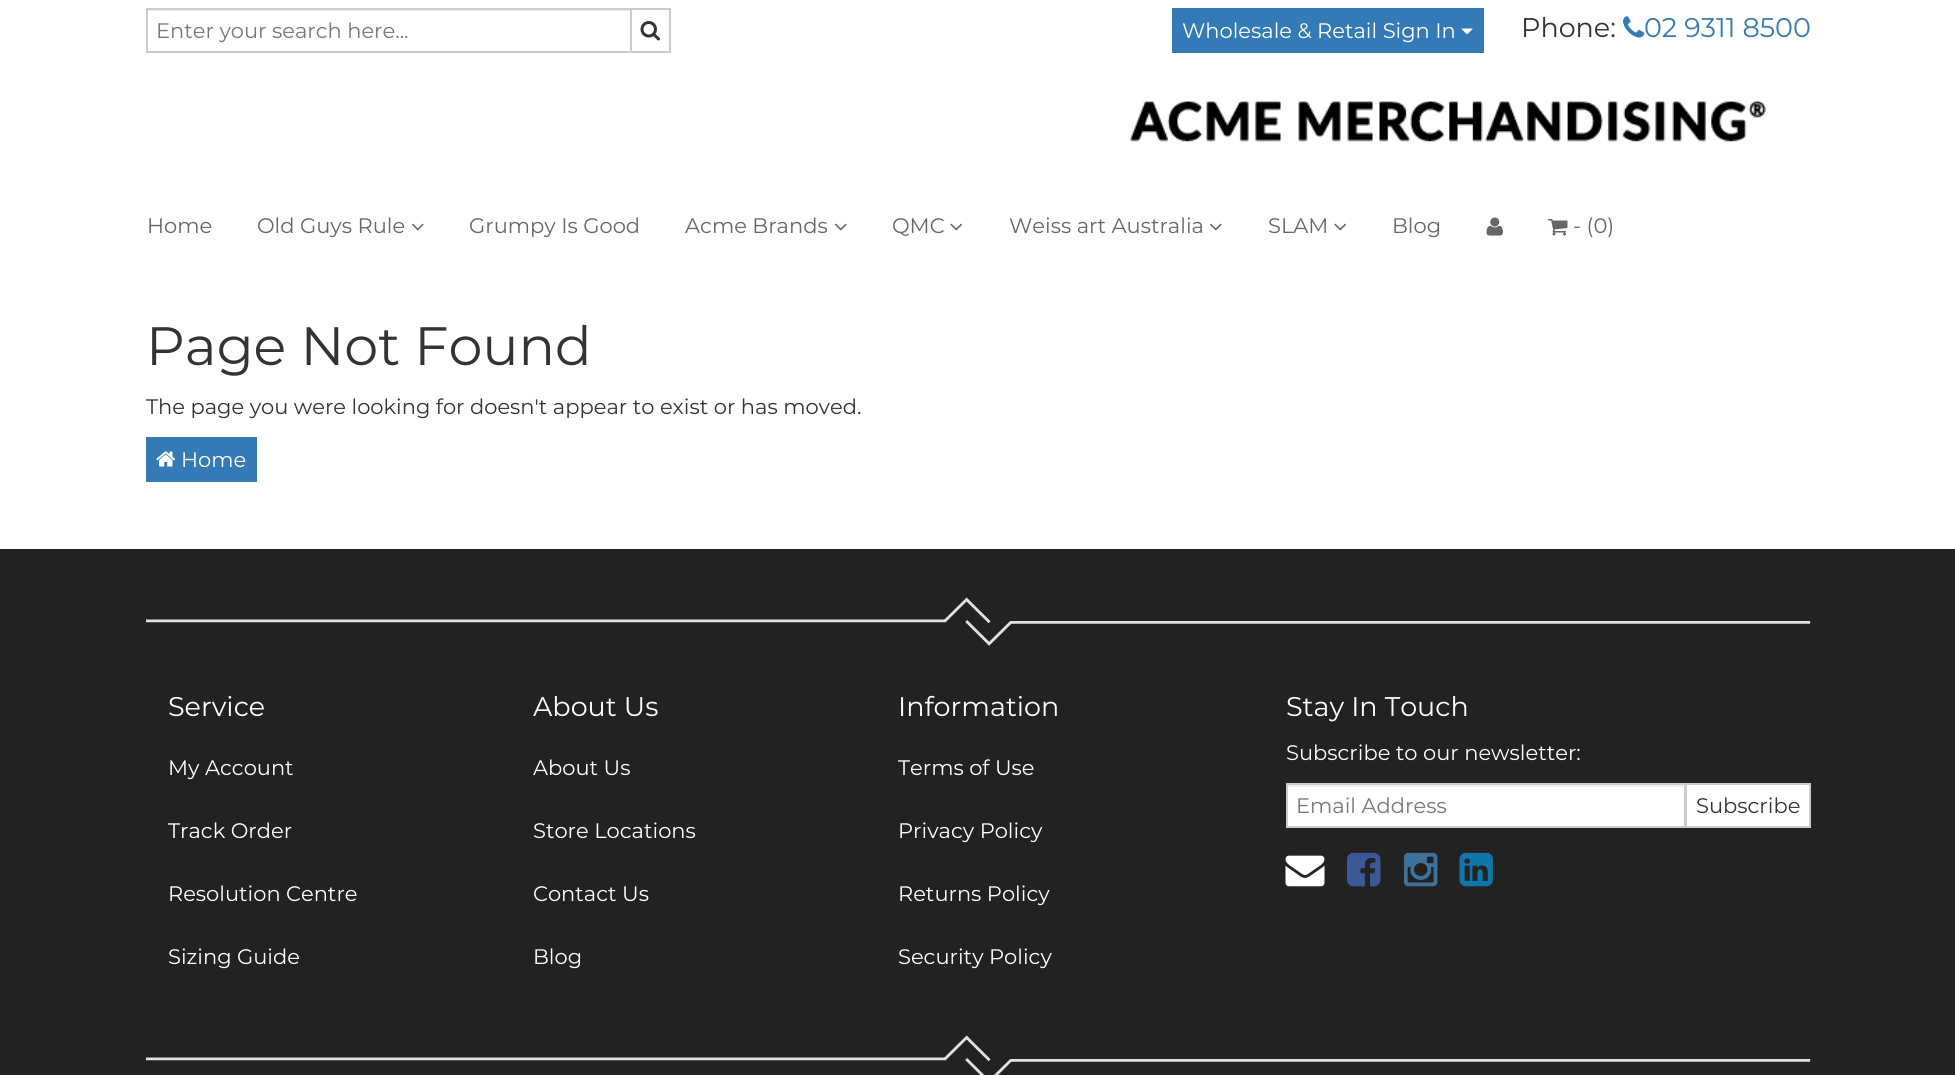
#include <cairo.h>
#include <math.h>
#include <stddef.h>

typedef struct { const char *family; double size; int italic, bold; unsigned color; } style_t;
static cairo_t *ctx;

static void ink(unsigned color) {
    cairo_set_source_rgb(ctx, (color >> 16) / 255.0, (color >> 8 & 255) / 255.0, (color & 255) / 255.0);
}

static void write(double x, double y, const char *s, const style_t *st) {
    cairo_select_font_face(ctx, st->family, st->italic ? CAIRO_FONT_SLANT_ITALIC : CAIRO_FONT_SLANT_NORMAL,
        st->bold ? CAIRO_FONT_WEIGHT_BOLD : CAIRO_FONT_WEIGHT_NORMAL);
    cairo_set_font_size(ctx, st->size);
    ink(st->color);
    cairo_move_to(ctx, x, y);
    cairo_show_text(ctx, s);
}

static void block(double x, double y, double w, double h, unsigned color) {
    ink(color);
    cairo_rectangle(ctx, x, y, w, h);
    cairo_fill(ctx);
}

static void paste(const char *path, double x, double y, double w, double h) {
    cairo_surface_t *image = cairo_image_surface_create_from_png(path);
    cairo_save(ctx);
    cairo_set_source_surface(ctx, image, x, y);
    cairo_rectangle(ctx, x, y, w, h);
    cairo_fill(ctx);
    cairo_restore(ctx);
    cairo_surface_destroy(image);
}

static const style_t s1 = {"Montserrat", 21, 0, 0, 0x777777};
static const style_t s2 = {"Montserrat", 21, 0, 0, 0xffffff};
static const style_t s3 = {"Montserrat", 27, 0, 0, 0x333333};
static const style_t s4 = {"Montserrat", 27, 0, 0, 0x337ab7};
static const style_t s5 = {"Montserrat", 21, 0, 0, 0x666666};
static const style_t s6 = {"Montserrat", 54, 0, 0, 0x333333};
static const style_t s7 = {"Montserrat", 21, 0, 0, 0x333333};
static const style_t s8 = {"Montserrat", 27, 0, 0, 0xffffff};

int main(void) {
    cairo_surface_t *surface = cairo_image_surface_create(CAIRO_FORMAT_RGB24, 1955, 1075);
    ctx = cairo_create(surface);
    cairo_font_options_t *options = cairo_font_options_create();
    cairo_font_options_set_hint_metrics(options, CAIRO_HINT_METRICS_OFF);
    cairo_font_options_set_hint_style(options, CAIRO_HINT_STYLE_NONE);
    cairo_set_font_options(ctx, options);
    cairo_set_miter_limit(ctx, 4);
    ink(0xffffff);
    cairo_paint(ctx);
    block(147, 10, 483, 1, 0xececec);
    cairo_rectangle(ctx, 631, 9, 39, 43);
    ink(0xcccccc);
    cairo_stroke(ctx);
    cairo_rectangle(ctx, 147, 9, 484, 43);
    cairo_stroke(ctx);
    write(156, 38, "Enter your search here...", &s1);
    paste("pic1.png", 640, 21, 20, 20);
    block(1172, 8, 312, 45, 0x337ab7);
    write(1182, 38, "Wholesale & Retail Sign In", &s2);
    cairo_new_path(ctx);
    cairo_move_to(ctx, 1461, 28.5);
    cairo_line_to(ctx, 1473, 28.5);
    cairo_line_to(ctx, 1467, 34.5);
    cairo_close_path(ctx);
    cairo_fill(ctx);
    write(1521, 37, "Phone:", &s3);
    paste("pic2.png", 1623, 16, 22, 22);
    write(1644, 37, "02 9311 8500", &s4);
    paste("pic3.png", 1129, 101, 637, 41);
    write(147, 233, "Home", &s5);
    write(257, 233, "Old Guys Rule", &s5);
    paste("pic4.png", 412, 223, 12, 8);
    write(469, 233, "Grumpy Is Good", &s5);
    write(685, 233, "Acme Brands", &s5);
    paste("pic4.png", 835, 223, 12, 8);
    write(892, 233, "QMC", &s5);
    paste("pic5.png", 950, 223, 12, 8);
    write(1009, 233, "Weiss art Australia", &s5);
    paste("pic4.png", 1210, 223, 12, 8);
    write(1268, 233, "SLAM", &s5);
    paste("pic5.png", 1334, 223, 12, 8);
    write(1392, 233, "Blog", &s5);
    paste("pic6.png", 1486, 217, 17, 19);
    paste("pic7.png", 1548, 219, 20, 17);
    write(1573, 233, "- (0)", &s5);
    write(146, 365, "Page Not Found", &s6);
    write(146, 414, "The page you were looking for doesn't appear to exist or has moved.", &s7);
    block(146, 437, 111, 45, 0x337ab7);
    paste("pic8.png", 156, 451, 20, 16);
    write(181, 467, "Home", &s2);
    block(0, 549, 1955, 526, 0x222222);
    paste("pic9.png", 146, 597, 1665, 49);
    write(168, 716, "Service", &s8);
    write(168, 775, "My Account", &s2);
    write(168, 838, "Track Order", &s2);
    write(168, 901, "Resolution Centre", &s2);
    write(168, 964, "Sizing Guide", &s2);
    write(533, 716, "About Us", &s8);
    write(533, 775, "About Us", &s2);
    write(533, 838, "Store Locations", &s2);
    write(533, 901, "Contact Us", &s2);
    write(533, 964, "Blog", &s2);
    write(898, 716, "Information", &s8);
    write(898, 775, "Terms of Use", &s2);
    write(898, 838, "Privacy Policy", &s2);
    write(898, 901, "Returns Policy", &s2);
    write(898, 964, "Security Policy", &s2);
    write(1286, 716, "Stay In Touch", &s8);
    write(1286, 760, "Subscribe to our newsletter:", &s2);
    block(1288, 787, 396, 39, 0xffffff);
    block(1287, 785, 398, 2, 0xececec);
    ink(0xffffff);
    cairo_rectangle(ctx, 1686, 784, 124, 43);
    cairo_fill_preserve(ctx);
    ink(0xcccccc);
    cairo_stroke(ctx);
    cairo_rectangle(ctx, 1287, 784, 398, 43);
    cairo_stroke(ctx);
    write(1296, 813, "Email Address", &s1);
    write(1696, 813, "Subscribe", &s7);
    paste("pic10.png", 1285, 855, 40, 32);
    paste("pic11.png", 1347, 852, 34, 35);
    paste("pic12.png", 1404, 852, 34, 35);
    paste("pic13.png", 1459, 852, 34, 35);
    paste("pic14.png", 146, 1035, 1665, 40);
    cairo_surface_write_to_png(surface, "screenshot.png");
    cairo_font_options_destroy(options);
    cairo_destroy(ctx);
    cairo_surface_destroy(surface);
    return 0;
}
